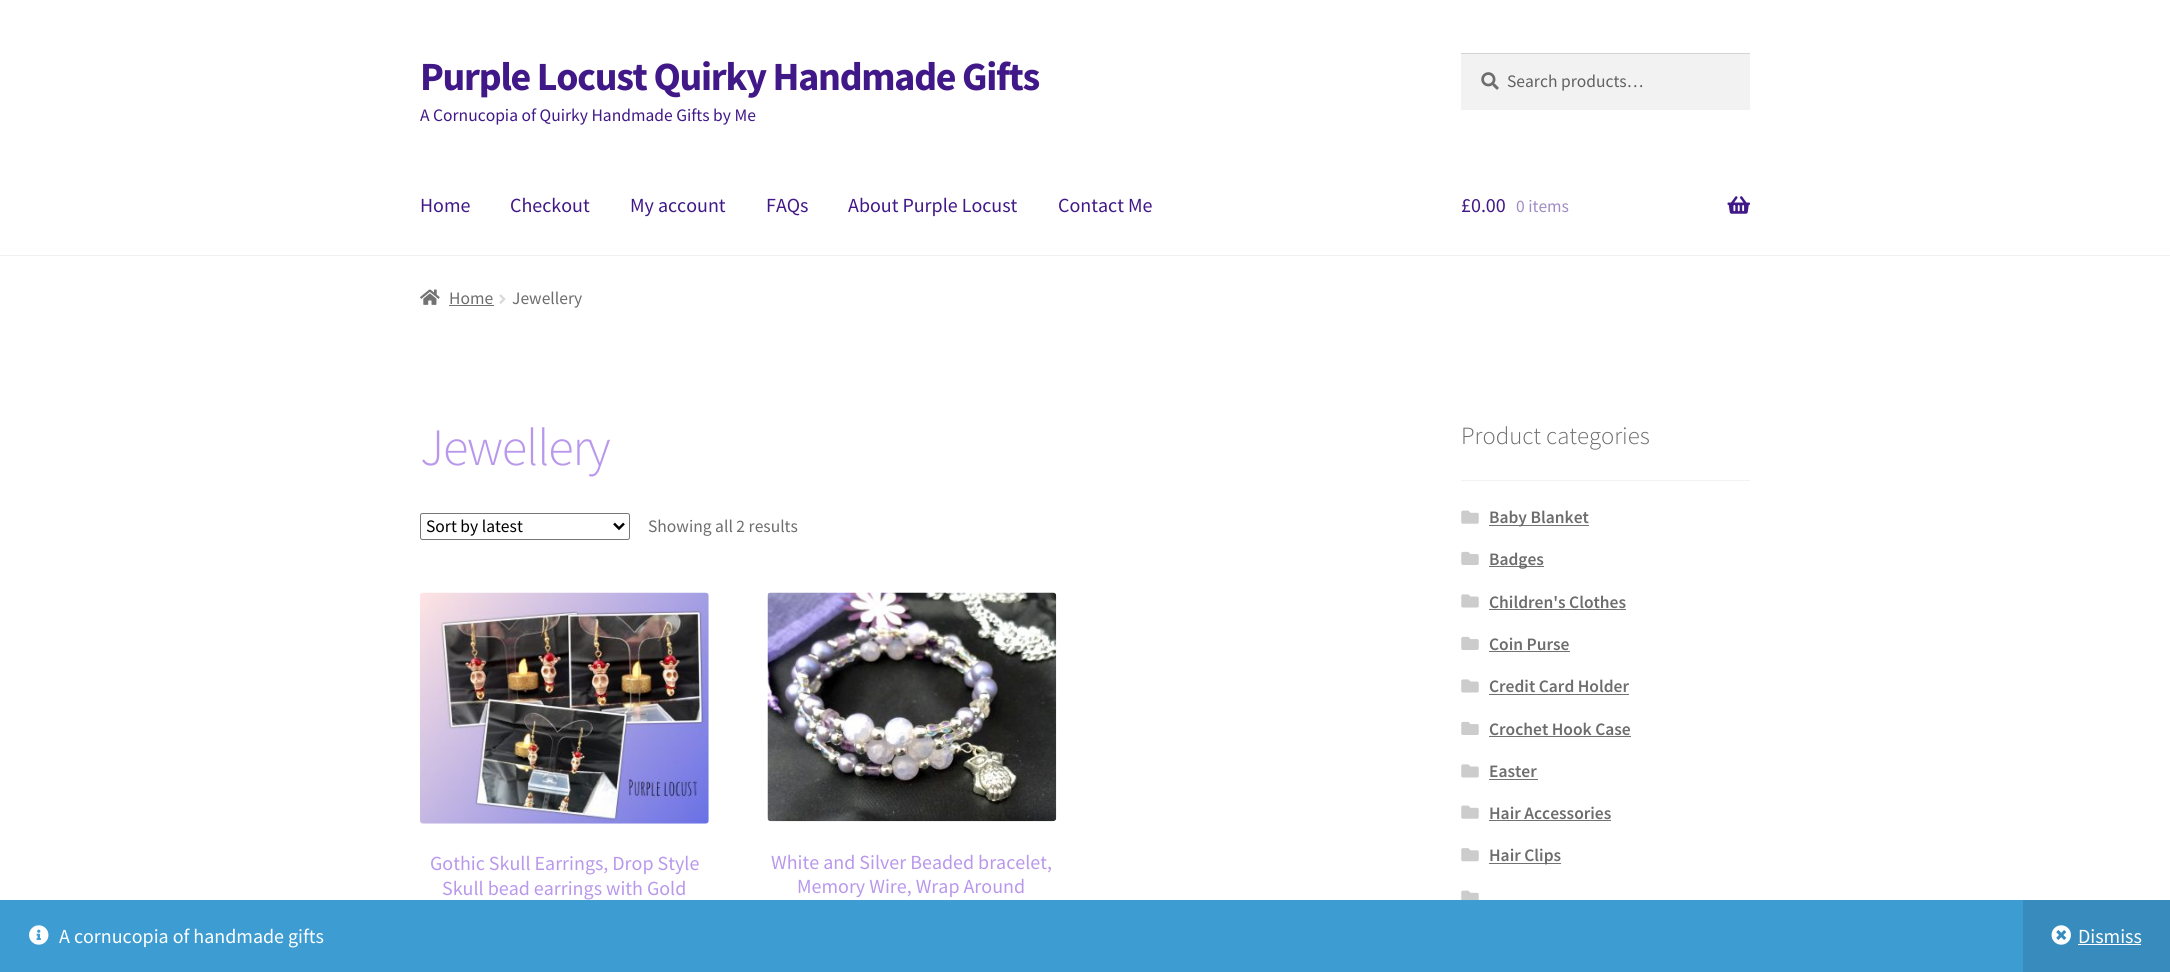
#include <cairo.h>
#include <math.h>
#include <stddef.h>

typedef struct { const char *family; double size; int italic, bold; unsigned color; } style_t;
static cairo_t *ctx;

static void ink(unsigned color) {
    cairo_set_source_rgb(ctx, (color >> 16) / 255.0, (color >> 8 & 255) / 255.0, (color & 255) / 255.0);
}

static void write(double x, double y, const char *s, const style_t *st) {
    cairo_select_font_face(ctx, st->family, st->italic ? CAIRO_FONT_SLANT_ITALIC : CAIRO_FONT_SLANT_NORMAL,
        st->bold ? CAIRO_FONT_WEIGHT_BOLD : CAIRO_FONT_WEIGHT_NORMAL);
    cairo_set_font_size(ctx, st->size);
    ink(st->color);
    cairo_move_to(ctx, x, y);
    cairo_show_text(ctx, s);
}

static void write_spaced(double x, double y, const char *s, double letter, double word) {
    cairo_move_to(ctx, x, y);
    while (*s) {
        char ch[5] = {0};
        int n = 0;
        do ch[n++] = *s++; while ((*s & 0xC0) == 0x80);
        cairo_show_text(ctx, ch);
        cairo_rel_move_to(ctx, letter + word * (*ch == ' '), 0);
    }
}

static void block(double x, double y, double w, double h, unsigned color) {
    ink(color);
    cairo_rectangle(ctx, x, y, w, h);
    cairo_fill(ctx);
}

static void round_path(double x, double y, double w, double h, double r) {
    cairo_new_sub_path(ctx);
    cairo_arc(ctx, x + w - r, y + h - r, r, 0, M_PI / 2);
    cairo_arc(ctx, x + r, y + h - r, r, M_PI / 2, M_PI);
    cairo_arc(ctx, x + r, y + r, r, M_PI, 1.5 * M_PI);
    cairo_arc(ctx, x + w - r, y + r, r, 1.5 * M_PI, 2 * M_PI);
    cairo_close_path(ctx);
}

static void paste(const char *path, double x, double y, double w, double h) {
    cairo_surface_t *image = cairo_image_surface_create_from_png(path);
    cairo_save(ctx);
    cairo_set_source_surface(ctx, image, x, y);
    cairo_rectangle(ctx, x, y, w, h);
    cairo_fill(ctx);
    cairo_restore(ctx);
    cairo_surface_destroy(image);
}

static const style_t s1 = {"Source Sans Pro", 17.5, 0, 0, 0x411887};
static const style_t s2 = {"Source Sans Pro", 17.5, 0, 0, 0x616161};
static const style_t s3 = {"Source Sans Pro", 20, 0, 0, 0x411887};
static const style_t s4 = {"Source Sans Pro", 17.5, 0, 0, 0xa08cc3};
static const style_t s5 = {"Source Sans Pro", 17.5, 0, 0, 0x6d6d6d};
static const style_t s6 = {"Source Sans Pro", 17.5, 0, 0, 0x000000};
static const style_t s7 = {"Source Sans Pro", 20, 0, 0, 0xb998eb};
static const style_t s8 = {"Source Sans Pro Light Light", 24.75, 0, 0, 0x6d6d6d};
static const style_t s9 = {"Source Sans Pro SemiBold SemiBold", 17.5, 0, 0, 0x6d6d6d};
static const style_t s10 = {"Source Sans Pro", 20, 0, 0, 0xffffff};

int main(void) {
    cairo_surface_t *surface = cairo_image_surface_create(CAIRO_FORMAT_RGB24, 2170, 972);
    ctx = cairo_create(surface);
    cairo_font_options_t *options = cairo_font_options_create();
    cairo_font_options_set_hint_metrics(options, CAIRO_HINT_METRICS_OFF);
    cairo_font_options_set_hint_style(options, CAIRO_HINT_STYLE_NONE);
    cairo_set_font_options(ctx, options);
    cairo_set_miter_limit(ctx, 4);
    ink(0xffffff);
    cairo_paint(ctx);
    block(0, 255, 2170, 1, 0xf0f0f0);
    cairo_select_font_face(ctx, "Source Sans Pro", CAIRO_FONT_SLANT_NORMAL, CAIRO_FONT_WEIGHT_BOLD);
    cairo_set_font_size(ctx, 40);
    ink(0x411887);
    write_spaced(420, 90, "Purple Locust Quirky Handmade Gifts", -1.25, 0);
    write(420, 121, "A Cornucopia of Quirky Handmade Gifts by Me", &s1);
    block(1461, 54, 289, 56, 0xf2f2f2);
    paste("pic1.png", 1481, 72, 18, 18);
    block(1461, 53, 289, 1, 0xd4d4d4);
    write(1507, 87, "Search products…", &s2);
    write(420, 212, "Home", &s3);
    write(510, 212, "Checkout", &s3);
    write(630, 212, "My account", &s3);
    write(766, 212, "FAQs", &s3);
    write(848, 212, "About Purple Locust", &s3);
    write(1058, 212, "Contact Me", &s3);
    write(1461, 212, "£0.00", &s3);
    write(1516, 212, "0 items", &s4);
    paste("pic2.png", 1727, 196, 23, 18);
    paste("pic3.png", 420, 289, 20, 16);
    write(449, 304, "Home", &s5);
    block(449, 305, 45, 1, 0x727272);
    paste("pic4.png", 499, 294, 7, 10);
    write(512, 304, "Jewellery", &s5);
    cairo_select_font_face(ctx, "Source Sans Pro Light Light", CAIRO_FONT_SLANT_NORMAL, CAIRO_FONT_WEIGHT_NORMAL);
    cairo_set_font_size(ctx, 52.5);
    ink(0xb998eb);
    write_spaced(420, 465, "Jewellery", -1.25, 0);
    round_path(420.5, 513.5, 209, 26, 2);
    ink(0x767676);
    cairo_set_line_width(ctx, 1);
    cairo_stroke(ctx);
    cairo_new_path(ctx);
    cairo_move_to(ctx, 614, 523.5);
    cairo_line_to(ctx, 619, 528.5);
    cairo_line_to(ctx, 624, 523.5);
    ink(0x000000);
    cairo_set_line_width(ctx, 2.5);
    cairo_stroke(ctx);
    write(426, 532, "Sort by latest", &s6);
    write(648, 532, "Showing all 2 results", &s5);
    paste("pic5.png", 420, 592, 289, 232);
    write(430, 870, "Gothic Skull Earrings, Drop Style", &s7);
    write(442, 895, "Skull bead earrings with Gold", &s7);
    paste("pic6.png", 767, 592, 290, 230);
    write(771, 869, "White and Silver Beaded bracelet,", &s7);
    write(797, 893, "Memory Wire, Wrap Around", &s7);
    block(1461, 480, 289, 1, 0xf2f2f2);
    write(1461, 444, "Product categories", &s8);
    paste("pic7.png", 1461, 510, 18, 14);
    block(1489, 525, 100, 1, 0x727272);
    write(1489, 523, "Baby Blanket", &s9);
    paste("pic8.png", 1461, 551, 18, 14);
    block(1489, 566, 55, 1, 0x727272);
    write(1489, 565, "Badges", &s9);
    paste("pic9.png", 1461, 594, 18, 14);
    write(1489, 608, "Children's Clothes", &s9);
    block(1489, 609, 137, 1, 0x727272);
    paste("pic8.png", 1461, 636, 18, 14);
    write(1489, 650, "Coin Purse", &s9);
    block(1489, 651, 81, 1, 0x727272);
    paste("pic9.png", 1461, 679, 18, 14);
    write(1489, 692, "Credit Card Holder", &s9);
    block(1489, 694, 140, 1, 0x727272);
    paste("pic8.png", 1461, 721, 18, 14);
    write(1489, 735, "Crochet Hook Case", &s9);
    block(1489, 736, 142, 1, 0x727272);
    paste("pic9.png", 1461, 764, 18, 14);
    write(1489, 777, "Easter", &s9);
    block(1489, 779, 49, 1, 0x727272);
    paste("pic7.png", 1461, 805, 18, 14);
    write(1489, 819, "Hair Accessories", &s9);
    block(1489, 820, 122, 1, 0x727272);
    paste("pic10.png", 1461, 848, 18, 14);
    block(1489, 863, 72, 1, 0x727272);
    write(1489, 861, "Hair Clips", &s9);
    paste("pic11.png", 1461, 890, 18, 10);
    block(0, 900, 2023, 72, 0x3d9cd2);
    paste("pic12.png", 29, 925, 20, 20);
    write(59, 943, "A cornucopia of handmade gifts", &s10);
    block(2023, 900, 147, 72, 0x378cbd);
    paste("pic13.png", 2051, 925, 20, 20);
    write(2078, 943, "Dismiss", &s10);
    block(2078, 944, 63, 1, 0xffffff);
    cairo_surface_write_to_png(surface, "screenshot.png");
    cairo_font_options_destroy(options);
    cairo_destroy(ctx);
    cairo_surface_destroy(surface);
    return 0;
}
